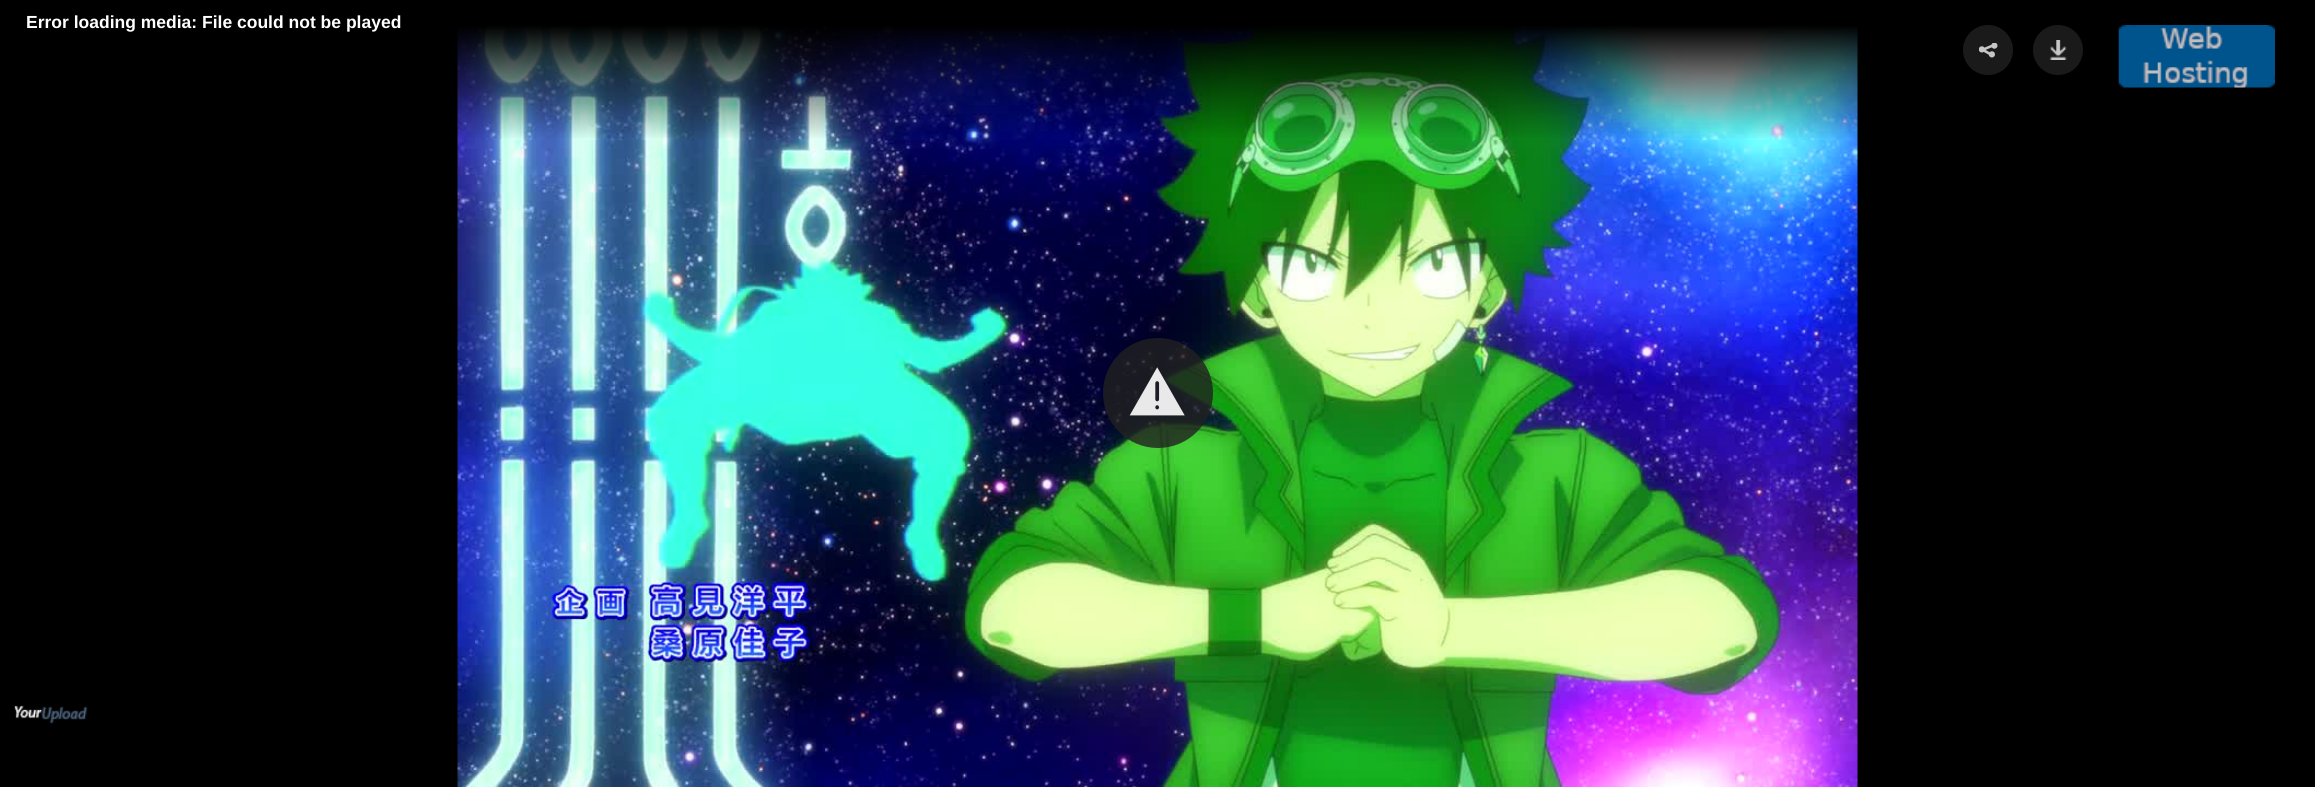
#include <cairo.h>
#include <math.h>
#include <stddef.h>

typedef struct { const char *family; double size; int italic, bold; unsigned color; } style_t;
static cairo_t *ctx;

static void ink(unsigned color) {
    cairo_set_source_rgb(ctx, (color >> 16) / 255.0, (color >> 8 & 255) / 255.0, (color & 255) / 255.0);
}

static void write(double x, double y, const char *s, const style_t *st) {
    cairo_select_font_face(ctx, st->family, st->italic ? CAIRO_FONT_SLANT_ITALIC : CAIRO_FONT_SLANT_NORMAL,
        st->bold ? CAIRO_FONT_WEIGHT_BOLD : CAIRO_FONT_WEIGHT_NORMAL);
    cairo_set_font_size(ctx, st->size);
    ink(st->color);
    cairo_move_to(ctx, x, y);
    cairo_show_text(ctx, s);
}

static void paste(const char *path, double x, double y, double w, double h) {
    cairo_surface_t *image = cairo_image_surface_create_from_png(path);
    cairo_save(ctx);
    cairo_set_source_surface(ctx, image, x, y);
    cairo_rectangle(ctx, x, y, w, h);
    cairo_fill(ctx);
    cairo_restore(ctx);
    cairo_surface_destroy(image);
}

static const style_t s1 = {"Liberation Sans", 17.5, 0, 1, 0xffffff};

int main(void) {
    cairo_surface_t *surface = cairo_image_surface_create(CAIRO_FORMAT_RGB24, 2315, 787);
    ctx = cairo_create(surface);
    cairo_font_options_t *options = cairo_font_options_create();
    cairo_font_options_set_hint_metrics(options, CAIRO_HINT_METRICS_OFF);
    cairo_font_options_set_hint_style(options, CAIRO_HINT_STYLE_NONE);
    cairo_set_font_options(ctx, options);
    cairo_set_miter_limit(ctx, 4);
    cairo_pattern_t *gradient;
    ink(0x000000);
    cairo_paint(ctx);
    paste("pic6.png", 457, 26, 1401, 761);
    gradient = cairo_pattern_create_linear(1158, 0, 1158, 140);
    cairo_pattern_add_color_stop_rgba(gradient, 0, 0, 0, 0, 1);
    cairo_pattern_add_color_stop_rgba(gradient, 0.18, 0, 0, 0, 1);
    cairo_pattern_add_color_stop_rgba(gradient, 1, 0, 0, 0, 0);
    cairo_set_source(ctx, gradient);
    cairo_pattern_destroy(gradient);
    cairo_rectangle(ctx, 457, 26, 1401, 112);
    cairo_fill(ctx);
    write(26, 28, "Error loading media: File could not be played", &s1);
    ink(0x1a1a1a);
    cairo_new_path(ctx);
    cairo_arc(ctx, 1988, 50, 25, 0, 2 * M_PI);
    cairo_fill(ctx);
    paste("pic1.png", 1979, 43, 19, 15);
    cairo_arc(ctx, 2058, 50, 25, 0, 2 * M_PI);
    cairo_fill(ctx);
    paste("pic2.png", 2049, 40, 18, 20);
    paste("pic3.png", 2118, 25, 157, 63);
    paste("pic4.png", 14, 705, 74, 19);
    cairo_set_source_rgba(ctx, 0.129, 0.129, 0.129, 0.8);
    cairo_arc(ctx, 1158, 393, 55, 0, 2 * M_PI);
    cairo_fill(ctx);
    paste("pic5.png", 1129, 367, 56, 49);
    cairo_surface_write_to_png(surface, "screenshot.png");
    cairo_font_options_destroy(options);
    cairo_destroy(ctx);
    cairo_surface_destroy(surface);
    return 0;
}
